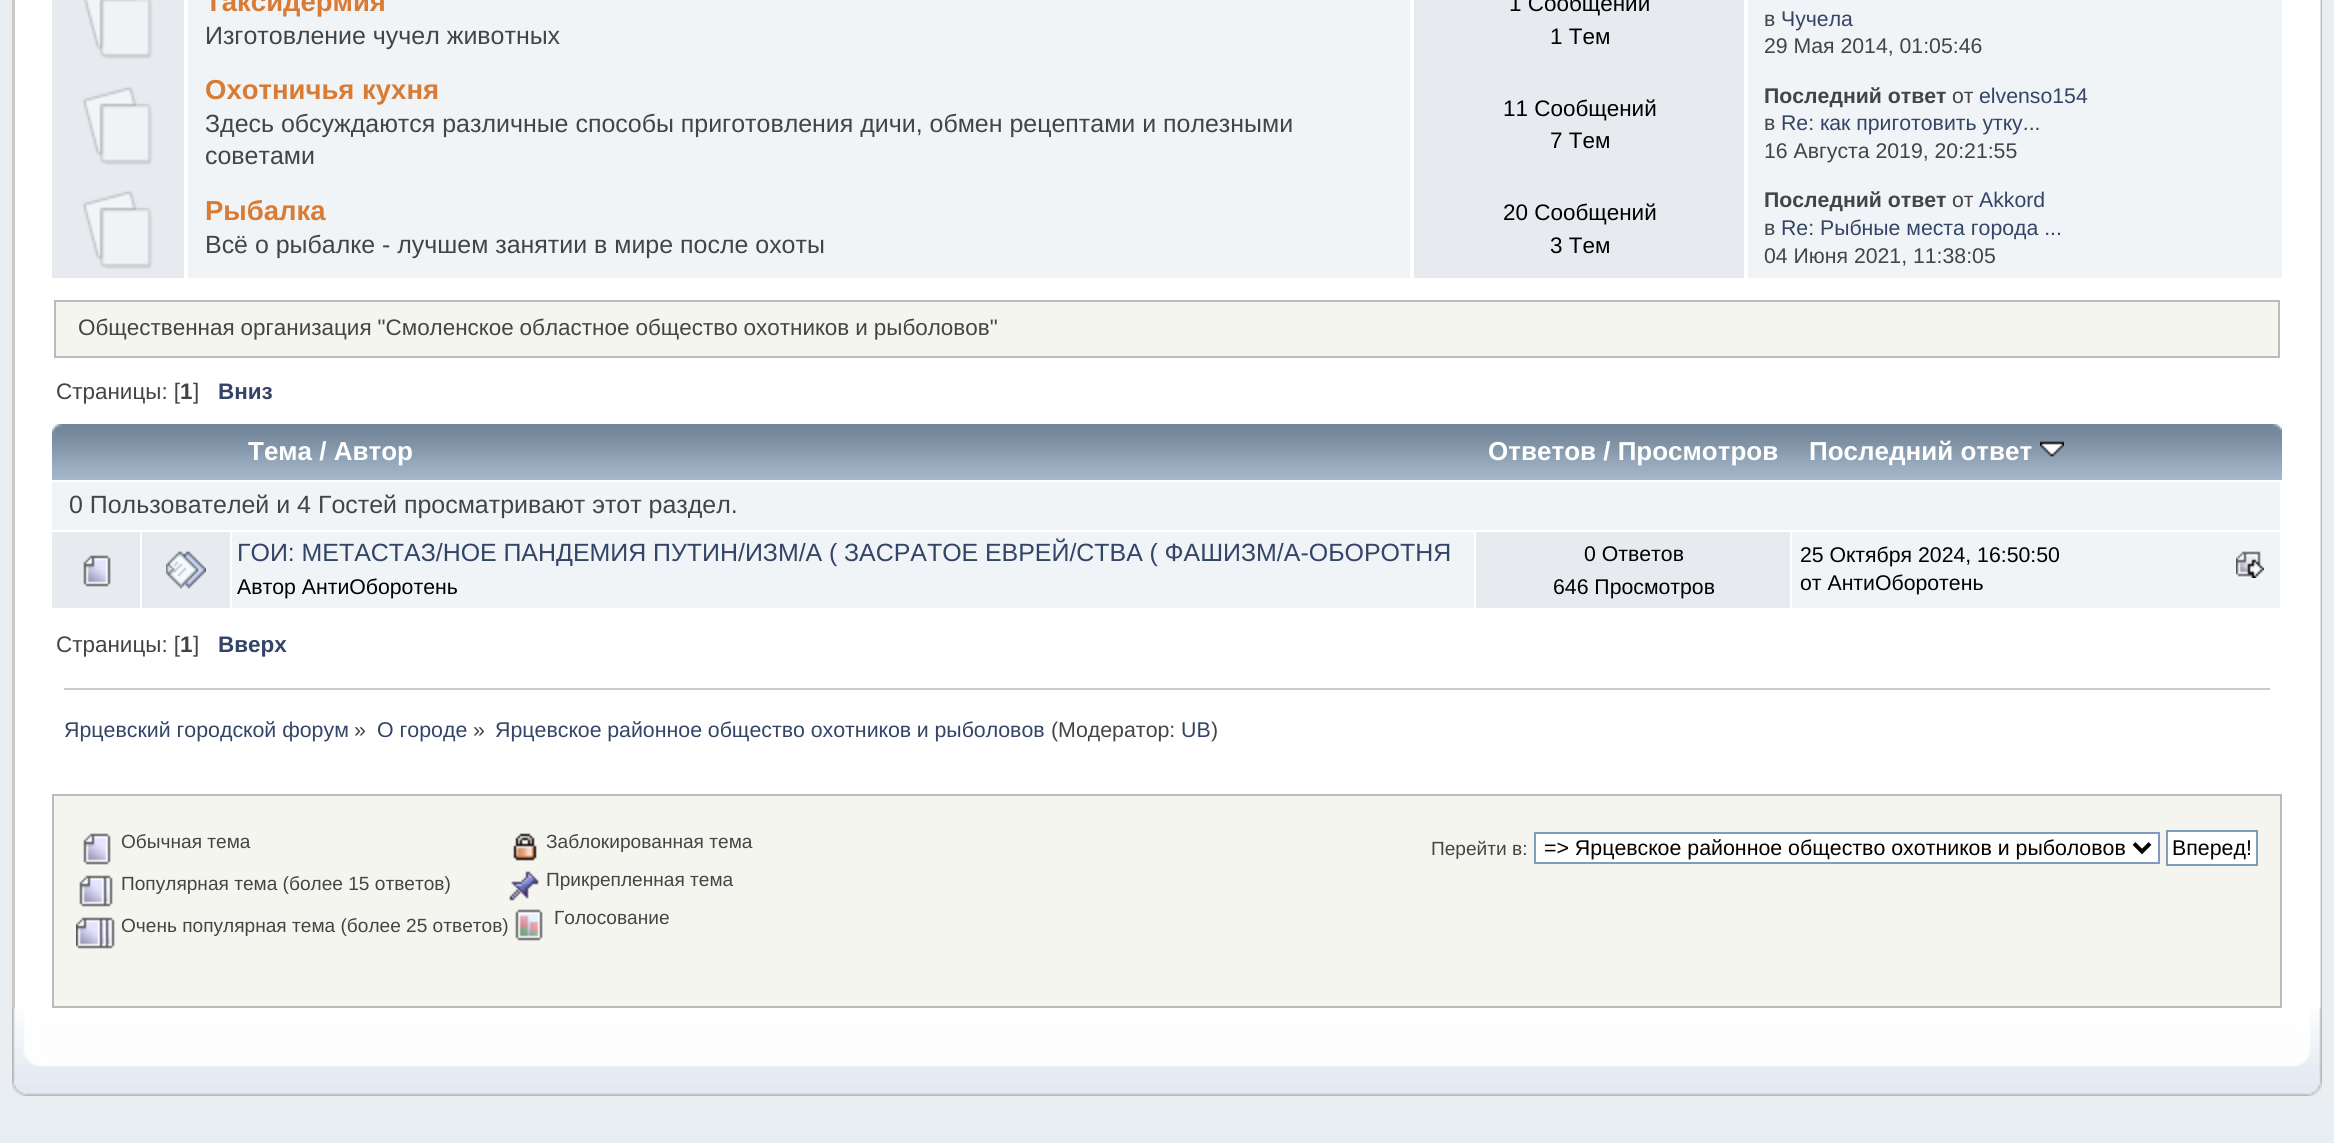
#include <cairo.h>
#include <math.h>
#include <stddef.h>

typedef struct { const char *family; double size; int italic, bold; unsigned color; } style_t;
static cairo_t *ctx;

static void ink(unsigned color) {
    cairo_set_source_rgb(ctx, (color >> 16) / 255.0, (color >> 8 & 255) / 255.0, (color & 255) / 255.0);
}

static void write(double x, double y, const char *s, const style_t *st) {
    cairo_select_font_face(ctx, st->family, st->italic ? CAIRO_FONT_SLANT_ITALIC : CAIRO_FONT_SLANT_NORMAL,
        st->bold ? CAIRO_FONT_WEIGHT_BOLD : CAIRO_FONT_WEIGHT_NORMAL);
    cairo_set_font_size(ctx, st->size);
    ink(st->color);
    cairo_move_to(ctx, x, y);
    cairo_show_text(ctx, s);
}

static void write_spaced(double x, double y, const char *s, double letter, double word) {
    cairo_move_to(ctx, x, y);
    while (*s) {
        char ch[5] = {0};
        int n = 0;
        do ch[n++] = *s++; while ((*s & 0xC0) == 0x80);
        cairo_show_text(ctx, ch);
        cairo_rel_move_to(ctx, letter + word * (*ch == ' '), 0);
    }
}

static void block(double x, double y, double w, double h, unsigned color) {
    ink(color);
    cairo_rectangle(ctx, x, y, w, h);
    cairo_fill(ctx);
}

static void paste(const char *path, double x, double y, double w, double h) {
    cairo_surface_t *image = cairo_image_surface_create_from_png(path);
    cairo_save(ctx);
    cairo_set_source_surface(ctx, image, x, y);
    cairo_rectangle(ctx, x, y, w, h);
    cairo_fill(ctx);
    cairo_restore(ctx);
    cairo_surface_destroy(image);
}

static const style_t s1 = {"Liberation Sans", 27.5, 0, 1, 0xd97b33};
static const style_t s2 = {"Liberation Sans", 24.95, 0, 0, 0x444444};
static const style_t s3 = {"Liberation Sans", 22.45, 0, 0, 0x000000};
static const style_t s4 = {"Liberation Sans", 21.25, 0, 0, 0x444444};
static const style_t s5 = {"Liberation Sans", 21.25, 0, 0, 0x334466};
static const style_t s6 = {"Liberation Sans", 21.25, 0, 1, 0x444444};
static const style_t s7 = {"Liberation Sans", 22.45, 0, 0, 0x444444};
static const style_t s8 = {"Liberation Sans", 22.45, 0, 1, 0x444444};
static const style_t s9 = {"Liberation Sans", 22.45, 0, 1, 0x334466};
static const style_t s10 = {"Liberation Sans", 26, 0, 1, 0xffffff};
static const style_t s11 = {"Liberation Sans", 21.25, 0, 0, 0x000000};
static const style_t s12 = {"Liberation Sans", 21.35, 0, 0, 0x334466};
static const style_t s13 = {"Liberation Sans", 21.35, 0, 0, 0x444444};
static const style_t s14 = {"Liberation Sans", 19.1, 0, 0, 0x444444};
static const style_t s15 = {"Liberation Sans", 21.35, 0, 0, 0x000000};

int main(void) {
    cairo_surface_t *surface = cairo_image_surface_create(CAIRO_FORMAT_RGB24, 2334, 1143);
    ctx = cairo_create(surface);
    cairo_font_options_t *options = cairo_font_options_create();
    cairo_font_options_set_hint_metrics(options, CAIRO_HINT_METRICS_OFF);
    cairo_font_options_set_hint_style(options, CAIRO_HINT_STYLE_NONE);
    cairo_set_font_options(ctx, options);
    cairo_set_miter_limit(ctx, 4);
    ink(0xe9eef2);
    cairo_paint(ctx);
    block(15, 0, 2305, 1008, 0xffffff);
    block(12, 0, 3, 1008, 0xc9c9c9);
    paste("pic1.png", 2320, 0, 2, 1008);
    block(188, 0, 2094, 278, 0xf0f4f7);
    block(52, 0, 132, 278, 0xe7eaef);
    paste("pic2.png", 83, 0, 70, 59);
    write(205, 11, "Таксидермия", &s1);
    write(205, 44, "Изготовление чучел животных", &s2);
    block(1414, 0, 330, 278, 0xe7eaef);
    write(1509, 11, "1 Сообщений", &s3);
    write(1550, 44, "1 Тем", &s3);
    write(1764, 26, "в", &s4);
    write(1781, 26, "Чучела", &s5);
    write(1764, 53, "29 Мая 2014, 01:05:46", &s4);
    paste("pic3.png", 82, 86, 71, 79);
    write(205, 99, "Охотничья кухня", &s1);
    write(205, 132, "Здесь обсуждаются различные способы приготовления дичи, обмен рецептами и полезными", &s2);
    write(205, 164, "советами", &s2);
    write(1503, 116, "11 Сообщений", &s3);
    write(1550, 148, "7 Тем", &s3);
    write(1764, 103, "Последний ответ", &s6);
    write(1952, 103, "от", &s4);
    write(1979, 103, "elvenso154", &s5);
    write(1764, 130, "в", &s4);
    write(1781, 130, "Re: как приготовить утку...", &s5);
    write(1764, 158, "16 Августа 2019, 20:21:55", &s4);
    paste("pic3.png", 82, 190, 71, 79);
    block(1410, 0, 4, 280, 0xffffff);
    write(205, 220, "Рыбалка", &s1);
    write(205, 253, "Всё о рыбалке - лучшем занятии в мире после охоты", &s2);
    block(1744, 0, 4, 280, 0xffffff);
    write(1503, 220, "20 Сообщений", &s3);
    write(1550, 253, "3 Тем", &s3);
    write(1764, 207, "Последний ответ", &s6);
    write(1952, 207, "от", &s4);
    write(1979, 207, "Akkord", &s5);
    write(1764, 235, "в", &s4);
    write(1781, 235, "Re: Рыбные места города ...", &s5);
    write(1764, 263, "04 Июня 2021, 11:38:05", &s4);
    ink(0xf5f5f0);
    cairo_rectangle(ctx, 55, 301, 2224, 56);
    cairo_fill_preserve(ctx);
    ink(0xbbbbbb);
    cairo_stroke(ctx);
    cairo_set_font_size(ctx, 22.45);
    ink(0x444444);
    write_spaced(78, 335, "Общественная организация \"Смоленское областное общество охотников и рыболовов\"", 0, -0.25);
    write(56, 399, "Страницы: [", &s7);
    write(180, 399, "1", &s8);
    write(193, 399, "]", &s7);
    write(218, 399, "Вниз", &s9);
    block(52, 479, 2230, 1, 0xa7b9cd);
    paste("pic4.png", 52, 424, 178, 55);
    paste("pic5.png", 230, 424, 1246, 55);
    write(248, 460, "Тема / Автор", &s10);
    paste("pic6.png", 1476, 424, 314, 55);
    write(1488, 460, "Ответов / Просмотров", &s10);
    paste("pic7.png", 1790, 424, 492, 55);
    write(1809, 460, "Последний ответ", &s10);
    paste("pic8.png", 2040, 441, 24, 16);
    block(52, 482, 2228, 48, 0xf0f4f7);
    write(69, 513, "0 Пользователей и 4 Гостей просматривают этот раздел.", &s2);
    block(52, 532, 88, 76, 0xe7eaef);
    paste("pic9.png", 83, 555, 28, 32);
    block(142, 532, 88, 76, 0xe7eaef);
    paste("pic10.png", 166, 551, 40, 38);
    block(232, 532, 1242, 76, 0xf0f4f7);
    ink(0x334466);
    write_spaced(237, 561, "ГОИ: МЕТАСТАЗ/НОЕ ПАНДЕМИЯ ПУТИН/ИЗМ/А ( ЗАСРАТОЕ ЕВРЕЙ/СТВА ( ФАШИЗМ/А-ОБОРОТНЯ", 0, -0.25);
    write(237, 594, "Автор АнтиОборотень", &s11);
    block(1476, 532, 314, 76, 0xe7eaef);
    write(1584, 561, "0 Ответов", &s11);
    write(1553, 594, "646 Просмотров", &s11);
    block(1792, 532, 488, 76, 0xf0f4f7);
    write(1800, 562, "25 Октября 2024, 16:50:50", &s11);
    paste("pic11.png", 2236, 551, 28, 27);
    write(1800, 590, "от АнтиОборотень", &s11);
    write(56, 652, "Страницы: [", &s7);
    write(180, 652, "1", &s8);
    write(193, 652, "]", &s7);
    write(218, 652, "Вверх", &s9);
    block(64, 688, 2206, 2, 0xcccccc);
    write(64, 737, "Ярцевский городской форум", &s12);
    write(354, 737, "»", &s13);
    write(377, 737, "О городе", &s12);
    write(473, 737, "»", &s13);
    ink(0x334466);
    write_spaced(495, 737, "Ярцевское районное общество охотников и рыболовов", 0, -0.25);
    write(1051, 737, "(Модератор:", &s13);
    write(1181, 737, "UB", &s12);
    write(1211, 737, ")", &s13);
    ink(0xf5f5f0);
    cairo_rectangle(ctx, 53, 795, 2228, 212);
    cairo_fill_preserve(ctx);
    ink(0xbbbbbb);
    cairo_stroke(ctx);
    paste("pic12.png", 83, 833, 28, 32);
    write(121, 848, "Обычная тема", &s14);
    paste("pic13.png", 79, 875, 34, 32);
    write(121, 890, "Популярная тема (более 15 ответов)", &s14);
    paste("pic14.png", 76, 917, 39, 32);
    write(121, 932, "Очень популярная тема (более 25 ответов)", &s14);
    paste("pic15.png", 513, 833, 24, 28);
    write(546, 848, "Заблокированная тема", &s14);
    paste("pic16.png", 509, 871, 30, 30);
    write(546, 886, "Прикрепленная тема", &s14);
    paste("pic17.png", 515, 909, 28, 32);
    write(554, 924, "Голосование", &s14);
    write(1431, 855, "Перейти в:", &s14);
    ink(0xffffff);
    cairo_rectangle(ctx, 1535, 833, 624, 30);
    cairo_fill_preserve(ctx);
    ink(0x7f9db9);
    cairo_stroke(ctx);
    cairo_new_path(ctx);
    cairo_move_to(ctx, 2134, 843.5);
    cairo_line_to(ctx, 2142, 851.5);
    cairo_line_to(ctx, 2150, 843.5);
    ink(0x000000);
    cairo_set_line_width(ctx, 4);
    cairo_stroke(ctx);
    write(1544, 855, "=> Ярцевское районное общество охотников и рыболовов", &s15);
    ink(0xffffff);
    cairo_rectangle(ctx, 2167, 831, 90, 34);
    cairo_fill_preserve(ctx);
    ink(0x7f9db9);
    cairo_set_line_width(ctx, 2);
    cairo_stroke(ctx);
    write(2172, 855, "Вперед!", &s15);
    paste("pic18.png", 12, 1008, 2286, 88);
    paste("pic19.png", 2298, 1008, 24, 88);
    cairo_surface_write_to_png(surface, "screenshot.png");
    cairo_font_options_destroy(options);
    cairo_destroy(ctx);
    cairo_surface_destroy(surface);
    return 0;
}
